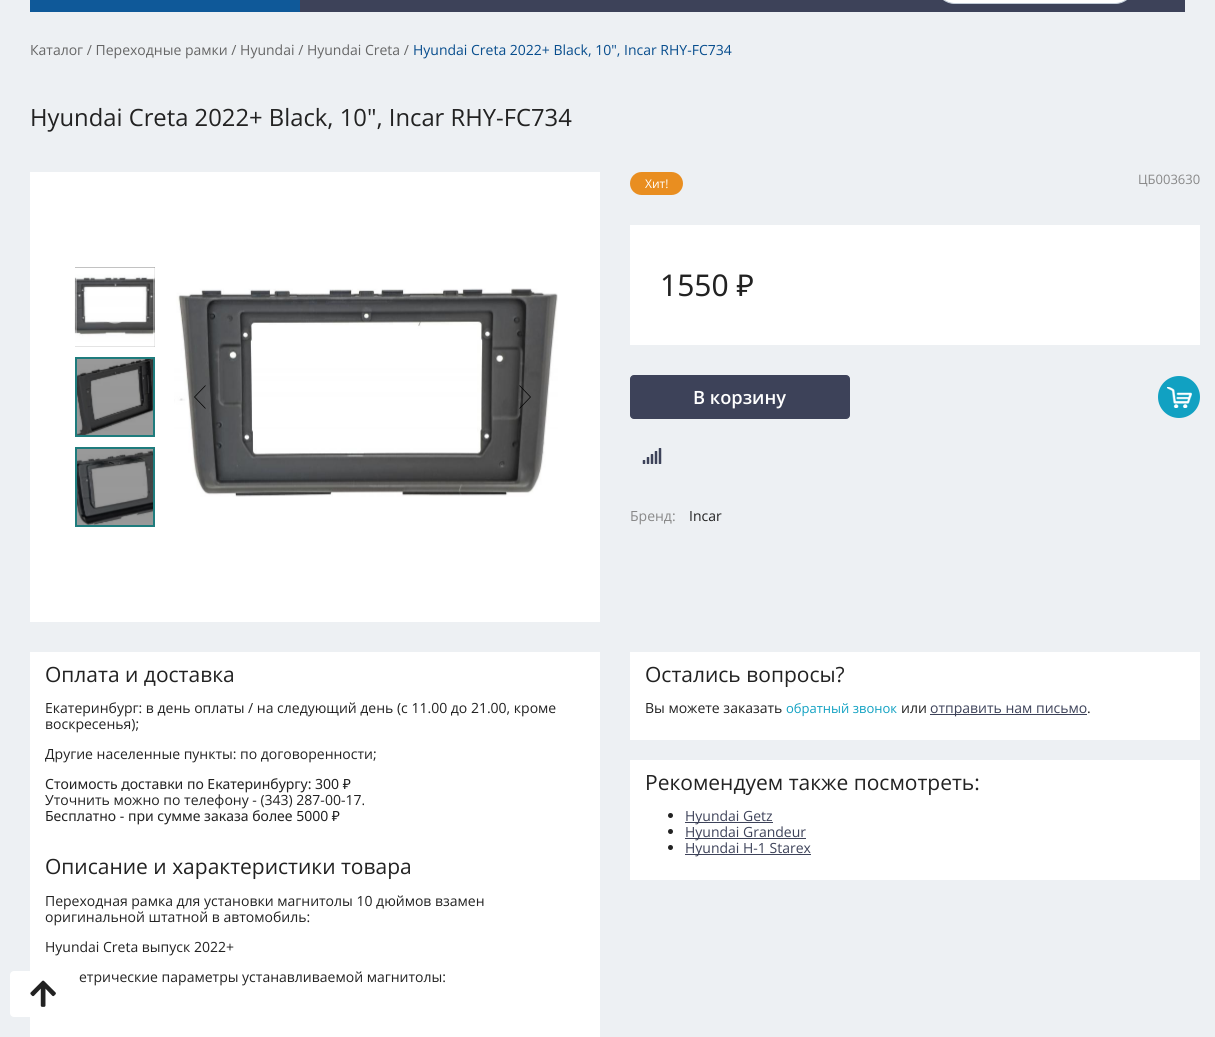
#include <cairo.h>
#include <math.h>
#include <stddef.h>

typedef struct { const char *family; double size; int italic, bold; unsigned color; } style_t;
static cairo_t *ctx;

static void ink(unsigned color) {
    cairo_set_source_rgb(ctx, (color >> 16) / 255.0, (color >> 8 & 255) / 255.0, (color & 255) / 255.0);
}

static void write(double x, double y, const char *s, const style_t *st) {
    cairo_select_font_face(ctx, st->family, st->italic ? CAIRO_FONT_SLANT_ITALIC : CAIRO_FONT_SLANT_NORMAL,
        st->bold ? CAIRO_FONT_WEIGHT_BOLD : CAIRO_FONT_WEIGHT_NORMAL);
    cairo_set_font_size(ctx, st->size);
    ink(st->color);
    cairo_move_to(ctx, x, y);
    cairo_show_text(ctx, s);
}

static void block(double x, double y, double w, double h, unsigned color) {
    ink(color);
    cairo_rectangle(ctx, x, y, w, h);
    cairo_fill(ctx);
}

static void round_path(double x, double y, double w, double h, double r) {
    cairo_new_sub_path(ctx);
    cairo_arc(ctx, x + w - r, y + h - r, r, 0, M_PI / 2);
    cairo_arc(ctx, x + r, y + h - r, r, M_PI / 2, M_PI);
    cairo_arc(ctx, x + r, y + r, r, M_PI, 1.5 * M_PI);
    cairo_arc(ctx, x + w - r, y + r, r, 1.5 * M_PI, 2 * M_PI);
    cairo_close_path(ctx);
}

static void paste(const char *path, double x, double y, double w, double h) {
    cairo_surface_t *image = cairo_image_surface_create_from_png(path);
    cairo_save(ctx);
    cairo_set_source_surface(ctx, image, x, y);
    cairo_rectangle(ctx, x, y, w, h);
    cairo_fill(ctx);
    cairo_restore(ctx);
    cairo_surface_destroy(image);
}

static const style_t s1 = {"Open Sans", 14, 0, 0, 0x666666};
static const style_t s2 = {"Open Sans", 14, 0, 0, 0x074d8d};
static const style_t s3 = {"Open Sans", 23.8, 0, 0, 0x222222};
static const style_t s4 = {"Open Sans", 12, 0, 0, 0xffffff};
static const style_t s5 = {"Open Sans", 13, 0, 0, 0x888888};
static const style_t s6 = {"Noto Sans", 30, 0, 0, 0x222222};
static const style_t s7 = {"Open Sans SemiBold", 18.25, 0, 0, 0xffffff};
static const style_t s8 = {"Open Sans", 14, 0, 0, 0x888888};
static const style_t s9 = {"Open Sans", 14, 0, 0, 0x222222};
static const style_t s10 = {"Open Sans", 21, 0, 0, 0x222222};
static const style_t s11 = {"Noto Sans", 14, 0, 0, 0x222222};
static const style_t s12 = {"Open Sans", 13, 0, 0, 0x11a1c2};
static const style_t s13 = {"Open Sans", 14, 0, 0, 0x3d4259};

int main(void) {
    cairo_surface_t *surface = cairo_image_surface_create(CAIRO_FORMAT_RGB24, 1215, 1037);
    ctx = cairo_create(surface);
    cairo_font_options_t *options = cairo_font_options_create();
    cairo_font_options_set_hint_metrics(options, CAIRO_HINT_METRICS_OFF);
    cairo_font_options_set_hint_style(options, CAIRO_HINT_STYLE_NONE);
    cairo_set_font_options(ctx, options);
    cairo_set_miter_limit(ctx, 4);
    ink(0xedf0f3);
    cairo_paint(ctx);
    block(300, 0, 885, 12, 0x3d4259);
    ink(0xffffff);
    round_path(935.5, -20.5, 199, 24, 19.5);
    cairo_fill_preserve(ctx);
    ink(0xc1cbd7);
    cairo_set_line_width(ctx, 1);
    cairo_stroke(ctx);
    block(30, 0, 270, 12, 0x0f5999);
    write(30, 55, "Каталог / Переходные рамки / Hyundai / Hyundai Creta /", &s1);
    write(413, 55, "Hyundai Creta 2022+ Black, 10\", Incar RHY-FC734", &s2);
    write(30, 126, "Hyundai Creta 2022+ Black, 10\", Incar RHY-FC734", &s3);
    block(30, 172, 570, 450, 0xffffff);
    block(75, 267, 80, 80, 0x000000);
    paste("pic1.png", 74, 267, 81, 80);
    cairo_rectangle(ctx, 76, 268, 78, 78);
    cairo_set_source_rgba(ctx, 1, 1, 1, 0.35);
    cairo_set_line_width(ctx, 2);
    cairo_stroke(ctx);
    cairo_arc(ctx, 115, 307, 15.5, 0, 2 * M_PI);
    cairo_set_line_width(ctx, 1.9);
    cairo_stroke(ctx);
    block(77, 359, 76, 76, 0x000000);
    paste("pic2.png", 77, 359, 76, 76);
    cairo_rectangle(ctx, 76, 358, 78, 78);
    ink(0x1e7c7d);
    cairo_set_line_width(ctx, 2);
    cairo_stroke(ctx);
    block(77, 449, 76, 76, 0x000000);
    paste("pic3.png", 77, 449, 76, 76);
    cairo_rectangle(ctx, 76, 448, 78, 78);
    ink(0x1e7c7d);
    cairo_stroke(ctx);
    paste("pic4.png", 174, 288, 384, 209);
    cairo_new_path(ctx);
    cairo_move_to(ctx, 205.5, 385.5);
    cairo_line_to(ctx, 194.5, 397);
    cairo_line_to(ctx, 205.5, 408.5);
    ink(0x000000);
    cairo_set_line_width(ctx, 0.7);
    cairo_stroke(ctx);
    cairo_new_path(ctx);
    cairo_move_to(ctx, 519.5, 385.5);
    cairo_line_to(ctx, 530.5, 397);
    cairo_line_to(ctx, 519.5, 408.5);
    cairo_stroke(ctx);
    ink(0xe98e20);
    round_path(630, 172, 53, 23, 11.5);
    cairo_fill(ctx);
    write(645, 188, "Хит!", &s4);
    write(1138, 184, "ЦБ003630", &s5);
    block(630, 225, 570, 120, 0xffffff);
    write(660, 296, "1550 ₽", &s6);
    ink(0x3d4259);
    round_path(630.5, 375.5, 219, 43, 3.5);
    cairo_fill_preserve(ctx);
    cairo_set_line_width(ctx, 1);
    cairo_stroke(ctx);
    write(693, 404, "В корзину", &s7);
    ink(0x11a1c2);
    cairo_new_path(ctx);
    cairo_arc(ctx, 1179, 397, 21, 0, 2 * M_PI);
    cairo_fill(ctx);
    paste("pic5.png", 1167, 387, 25, 21);
    paste("pic6.png", 642, 448, 20, 16);
    write(630, 521, "Бренд:", &s8);
    write(689, 521, "Incar", &s9);
    block(30, 652, 570, 385, 0xffffff);
    write(45, 682, "Оплата и доставка", &s10);
    write(45, 713, "Екатеринбург: в день оплаты / на следующий день (с 11.00 до 21.00, кроме", &s9);
    write(45, 729, "воскресенья);", &s9);
    write(45, 759, "Другие населенные пункты: по договоренности;", &s9);
    write(45, 789, "Стоимость доставки по Екатеринбургу: 300 ₽", &s11);
    write(45, 805, "Уточнить можно по телефону - (343) 287-00-17.", &s9);
    write(45, 821, "Бесплатно - при сумме заказа более 5000 ₽", &s11);
    write(45, 874, "Описание и характеристики товара", &s10);
    write(45, 906, "Переходная рамка для установки магнитолы 10 дюймов взамен", &s9);
    write(45, 922, "оригинальной штатной в автомобиль:", &s9);
    write(45, 952, "Hyundai Creta выпуск 2022+", &s9);
    write(79, 982, "етрические параметры устанавливаемой магнитолы:", &s9);
    block(630, 652, 570, 88, 0xffffff);
    write(645, 682, "Остались вопросы?", &s10);
    write(645, 713, "Вы можете заказать", &s9);
    write(786, 713, "обратный звонок", &s12);
    write(901, 713, "или", &s9);
    block(930, 714, 157, 1, 0x3d4259);
    write(930, 713, "отправить нам письмо", &s13);
    write(1087, 713, ".", &s9);
    block(630, 760, 570, 120, 0xffffff);
    write(645, 790, "Рекомендуем также посмотреть:", &s10);
    cairo_new_path(ctx);
    cairo_arc(ctx, 670.5, 815.5, 2.5, 0, 2 * M_PI);
    cairo_fill(ctx);
    block(685, 822, 88, 1, 0x3d4259);
    write(685, 821, "Hyundai Getz", &s13);
    ink(0x222222);
    cairo_new_path(ctx);
    cairo_arc(ctx, 670.5, 831.5, 2.5, 0, 2 * M_PI);
    cairo_fill(ctx);
    block(685, 838, 121, 1, 0x3d4259);
    write(685, 837, "Hyundai Grandeur", &s13);
    ink(0x222222);
    cairo_new_path(ctx);
    cairo_arc(ctx, 670.5, 847.5, 2.5, 0, 2 * M_PI);
    cairo_fill(ctx);
    block(685, 854, 126, 1, 0x3d4259);
    write(685, 853, "Hyundai H-1 Starex", &s13);
    ink(0xffffff);
    round_path(10, 971, 66, 46, 4);
    cairo_fill(ctx);
    paste("pic7.png", 30, 980, 26, 27);
    cairo_surface_write_to_png(surface, "screenshot.png");
    cairo_font_options_destroy(options);
    cairo_destroy(ctx);
    cairo_surface_destroy(surface);
    return 0;
}
